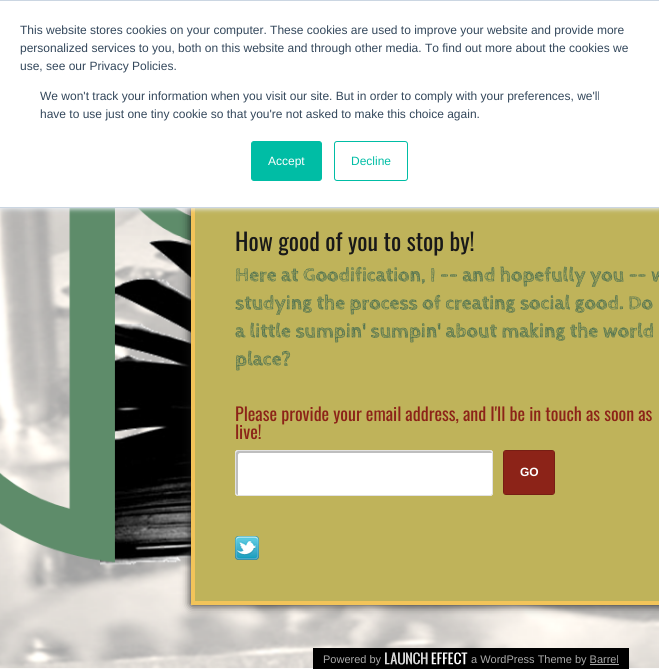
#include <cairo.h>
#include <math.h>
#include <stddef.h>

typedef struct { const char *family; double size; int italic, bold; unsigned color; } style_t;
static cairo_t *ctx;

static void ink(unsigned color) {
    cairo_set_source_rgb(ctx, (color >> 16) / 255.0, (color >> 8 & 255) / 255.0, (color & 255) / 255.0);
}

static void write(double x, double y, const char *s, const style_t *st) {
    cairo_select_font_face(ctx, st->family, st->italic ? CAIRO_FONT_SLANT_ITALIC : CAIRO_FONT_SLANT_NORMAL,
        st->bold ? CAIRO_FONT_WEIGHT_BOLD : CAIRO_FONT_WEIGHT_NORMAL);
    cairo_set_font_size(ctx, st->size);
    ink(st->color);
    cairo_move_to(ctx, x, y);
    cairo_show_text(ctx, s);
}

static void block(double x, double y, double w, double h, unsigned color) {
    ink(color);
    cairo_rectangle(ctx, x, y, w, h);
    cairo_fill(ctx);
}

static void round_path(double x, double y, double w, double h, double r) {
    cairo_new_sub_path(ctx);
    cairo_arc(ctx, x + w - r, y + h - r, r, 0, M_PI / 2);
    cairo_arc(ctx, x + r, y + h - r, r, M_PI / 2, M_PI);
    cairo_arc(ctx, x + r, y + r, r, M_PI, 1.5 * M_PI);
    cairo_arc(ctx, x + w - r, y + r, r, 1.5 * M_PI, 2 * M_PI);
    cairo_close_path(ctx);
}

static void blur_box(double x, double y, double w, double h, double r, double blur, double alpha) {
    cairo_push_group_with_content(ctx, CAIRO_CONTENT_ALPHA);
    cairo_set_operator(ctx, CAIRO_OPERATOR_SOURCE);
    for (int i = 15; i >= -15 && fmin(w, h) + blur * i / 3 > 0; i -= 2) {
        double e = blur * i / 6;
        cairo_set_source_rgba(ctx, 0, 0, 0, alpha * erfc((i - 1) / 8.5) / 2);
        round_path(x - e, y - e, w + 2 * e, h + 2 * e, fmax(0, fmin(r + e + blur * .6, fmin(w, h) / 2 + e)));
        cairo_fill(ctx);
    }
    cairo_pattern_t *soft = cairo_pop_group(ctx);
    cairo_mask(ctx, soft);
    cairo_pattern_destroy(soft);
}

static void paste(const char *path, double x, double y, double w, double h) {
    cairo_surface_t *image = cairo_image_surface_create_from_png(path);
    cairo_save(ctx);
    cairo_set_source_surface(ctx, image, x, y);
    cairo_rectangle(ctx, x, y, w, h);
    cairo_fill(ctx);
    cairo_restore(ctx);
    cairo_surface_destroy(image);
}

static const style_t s1 = {"Liberation Sans", 12, 0, 0, 0x33475b};
static const style_t s2 = {"Liberation Sans", 12, 0, 0, 0xffffff};
static const style_t s3 = {"Liberation Sans", 12, 0, 0, 0x00bda5};
static const style_t s4 = {"Oswald", 24, 0, 0, 0x191919};
static const style_t s5 = {"Cabin Sketch", 20, 0, 1, 0x476d50};
static const style_t s6 = {"Oswald", 18, 0, 0, 0x8c2318};
static const style_t s7 = {"Liberation Sans", 12, 0, 1, 0xffffff};
static const style_t s8 = {"Liberation Sans", 11, 0, 0, 0xaaaaaa};

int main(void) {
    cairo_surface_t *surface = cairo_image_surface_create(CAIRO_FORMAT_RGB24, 659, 669);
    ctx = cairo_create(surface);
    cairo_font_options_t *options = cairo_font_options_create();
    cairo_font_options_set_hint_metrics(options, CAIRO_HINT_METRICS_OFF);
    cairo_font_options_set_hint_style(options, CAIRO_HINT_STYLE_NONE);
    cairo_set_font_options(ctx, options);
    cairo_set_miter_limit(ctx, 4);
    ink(0xffffff);
    cairo_paint(ctx);
    paste("pic1.png", 0, 208, 659, 461);
    ink(0x111111);
    blur_box(191, 64, 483, 541, 0, 5, 1);
    block(195, 208, 464, 393, 0xbfb35a);
    cairo_rectangle(ctx, 193, 66, 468, 537);
    ink(0xf2c45a);
    cairo_set_line_width(ctx, 4);
    cairo_stroke(ctx);
    ink(0xeaf0f6);
    blur_box(0, 1, 659, 208, 0, 2.5, 1);
    block(0, 1, 659, 206, 0xffffff);
    block(0, 0, 659, 1, 0xcbd6e2);
    block(0, 207, 659, 1, 0xcbd6e2);
    write(20, 34, "This website stores cookies on your computer. These cookies are used to improve your website and provide more", &s1);
    write(20, 52, "personalized services to you, both on this website and through other media. To find out more about the cookies we", &s1);
    write(20, 70, "use, see our Privacy Policies.", &s1);
    write(40, 100, "We won't track your information when you visit our site. But in order to comply with your preferences, we'll", &s1);
    write(40, 118, "have to use just one tiny cookie so that you're not asked to make this choice again.", &s1);
    ink(0x00bda5);
    round_path(251.5, 141.5, 70, 39, 2.5);
    cairo_fill_preserve(ctx);
    cairo_set_line_width(ctx, 1);
    cairo_stroke(ctx);
    write(268, 165, "Accept", &s2);
    round_path(334.5, 141.5, 73, 39, 2.5);
    ink(0x00bda5);
    cairo_stroke(ctx);
    write(351, 165, "Decline", &s3);
    write(235, 251, "How good of you to stop by!", &s4);
    write(235, 281, "Here at Goodification, I -- and hopefully you -- w", &s5);
    write(235, 309, "studying the process of creating social good. Do", &s5);
    write(235, 337, "a little sumpin' sumpin' about making the world", &s5);
    write(235, 365, "place?", &s5);
    write(235, 421, "Please provide your email address, and I'll be in touch as soon as", &s6);
    write(235, 439, "live!", &s6);
    ink(0xffffff);
    round_path(235, 450, 258, 46, 3);
    cairo_fill(ctx);
    ink(0xbebebe);
    cairo_new_path(ctx);
    cairo_move_to(ctx, 240, 453);
    cairo_line_to(ctx, 492, 453);
    cairo_curve_to(ctx, 492, 452, 491, 451, 490, 451);
    cairo_line_to(ctx, 238, 451);
    cairo_curve_to(ctx, 237, 451, 236, 452, 236, 453);
    cairo_line_to(ctx, 236, 493);
    cairo_curve_to(ctx, 236, 494, 237, 495, 238, 495);
    cairo_line_to(ctx, 238, 455);
    cairo_curve_to(ctx, 238, 454, 239, 453, 240, 453);
    cairo_close_path(ctx);
    cairo_fill(ctx);
    round_path(235.5, 450.5, 257, 45, 2.5);
    ink(0xe2e2e2);
    cairo_stroke(ctx);
    round_path(503.5, 450.5, 51, 44, 2.5);
    ink(0x771e14);
    cairo_stroke(ctx);
    block(504, 451, 50, 43, 0x8c2318);
    write(520, 476, "GO", &s7);
    paste("pic2.png", 235, 536, 24, 24);
    block(313, 648, 316, 21, 0x000000);
    write(323, 663, "Powered by", &s8);
    paste("pic3.png", 385, 652, 83, 13);
    write(471, 663, "a WordPress Theme by Barrel", &s8);
    block(590, 664, 29, 1, 0xaaaaaa);
    cairo_surface_write_to_png(surface, "screenshot.png");
    cairo_font_options_destroy(options);
    cairo_destroy(ctx);
    cairo_surface_destroy(surface);
    return 0;
}
